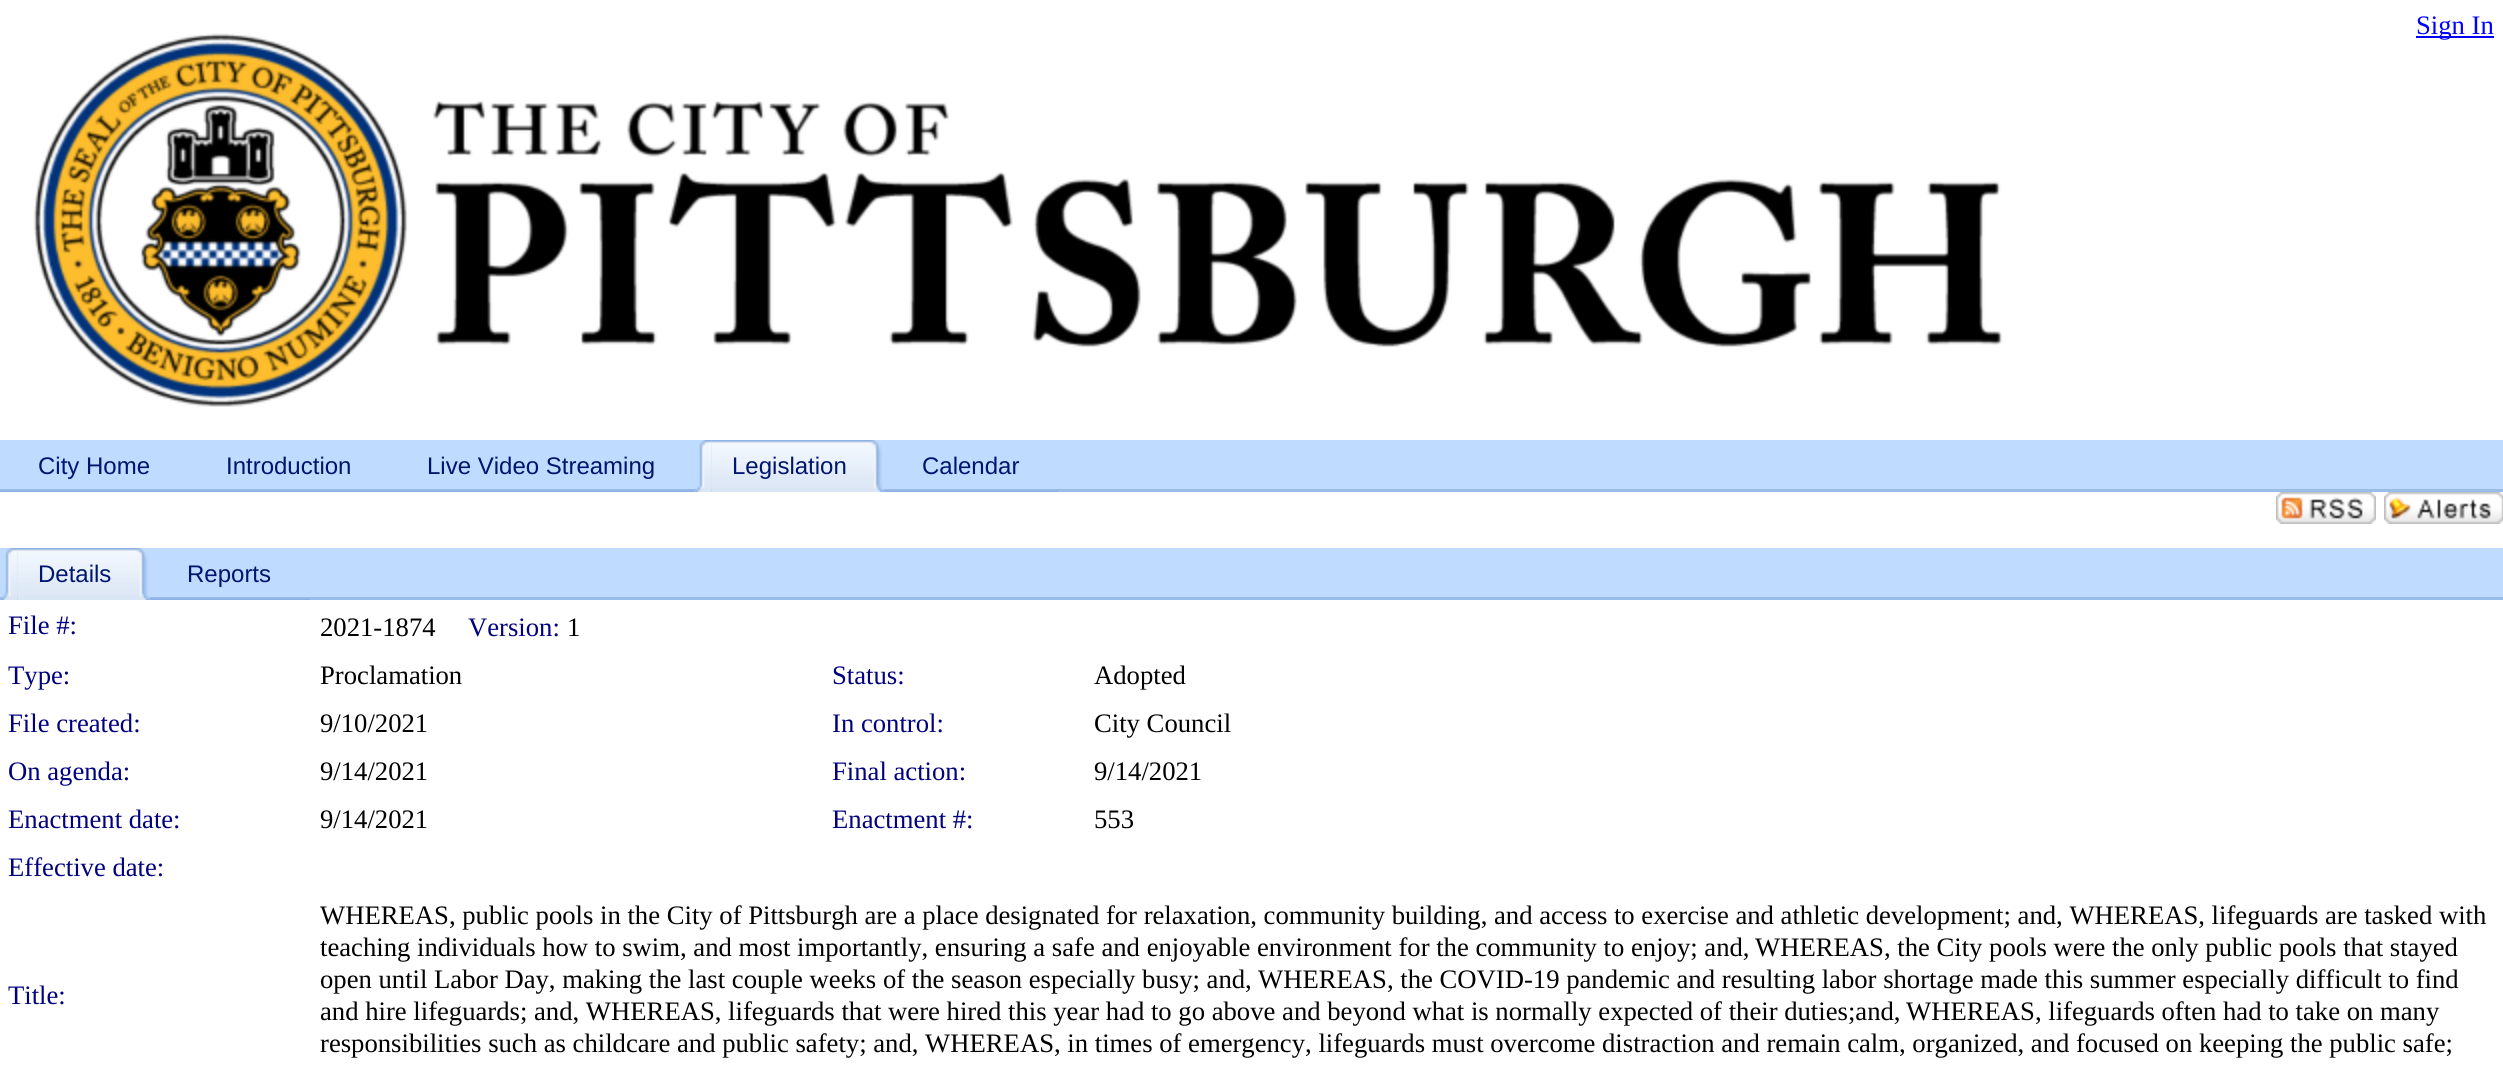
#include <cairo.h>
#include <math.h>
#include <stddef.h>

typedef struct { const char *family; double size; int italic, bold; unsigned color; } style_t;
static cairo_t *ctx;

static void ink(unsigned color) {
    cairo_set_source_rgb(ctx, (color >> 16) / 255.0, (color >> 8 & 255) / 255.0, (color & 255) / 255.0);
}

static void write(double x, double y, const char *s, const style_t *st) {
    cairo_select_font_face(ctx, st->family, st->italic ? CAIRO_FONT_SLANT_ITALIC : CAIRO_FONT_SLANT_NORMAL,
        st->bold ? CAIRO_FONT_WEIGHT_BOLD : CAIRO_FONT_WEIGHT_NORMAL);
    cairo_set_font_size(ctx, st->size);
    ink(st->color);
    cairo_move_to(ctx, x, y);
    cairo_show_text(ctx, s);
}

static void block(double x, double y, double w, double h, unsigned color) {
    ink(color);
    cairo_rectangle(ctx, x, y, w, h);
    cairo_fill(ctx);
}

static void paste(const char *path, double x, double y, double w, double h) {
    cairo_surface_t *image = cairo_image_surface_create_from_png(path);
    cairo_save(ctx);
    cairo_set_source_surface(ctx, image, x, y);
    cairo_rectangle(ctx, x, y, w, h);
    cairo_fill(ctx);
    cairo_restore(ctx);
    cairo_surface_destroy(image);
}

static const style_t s1 = {"Liberation Serif", 26.67, 0, 0, 0x0000ff};
static const style_t s2 = {"Liberation Sans", 24, 0, 0, 0x00156e};
static const style_t s3 = {"Liberation Serif", 26.67, 0, 0, 0x000080};
static const style_t s4 = {"Liberation Serif", 26.67, 0, 0, 0x000000};

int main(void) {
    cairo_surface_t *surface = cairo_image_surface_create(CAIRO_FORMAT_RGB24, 2503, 1076);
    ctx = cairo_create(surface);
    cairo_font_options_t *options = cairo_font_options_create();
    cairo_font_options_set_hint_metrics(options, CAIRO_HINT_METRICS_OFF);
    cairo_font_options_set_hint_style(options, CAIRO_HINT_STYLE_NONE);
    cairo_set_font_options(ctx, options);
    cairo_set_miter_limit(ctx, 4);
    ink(0xffffff);
    cairo_paint(ctx);
    block(2416, 36, 78, 2, 0x0000ff);
    write(2416, 34, "Sign In", &s1);
    paste("pic1.png", 33, 33, 1970, 374);
    block(0, 440, 2503, 49, 0xbfdbff);
    block(0, 489, 2503, 3, 0x99bcea);
    paste("pic2.png", 0, 490, 188, 2);
    write(38, 474, "City Home", &s2);
    paste("pic3.png", 188, 490, 202, 2);
    write(226, 474, "Introduction", &s2);
    paste("pic4.png", 390, 490, 304, 2);
    write(427, 474, "Live Video Streaming", &s2);
    paste("pic5.png", 696, 440, 16, 52);
    paste("pic6.png", 712, 440, 172, 52);
    write(732, 474, "Legislation", &s2);
    paste("pic7.png", 884, 490, 174, 2);
    write(922, 474, "Calendar", &s2);
    paste("pic8.png", 2276, 492, 100, 32);
    paste("pic9.png", 2384, 492, 119, 32);
    block(0, 548, 2503, 49, 0xbfdbff);
    block(0, 597, 2503, 3, 0x99bcea);
    paste("pic10.png", 2, 548, 16, 52);
    paste("pic11.png", 18, 548, 132, 52);
    write(38, 582, "Details", &s2);
    paste("pic12.png", 150, 598, 160, 2);
    write(187, 582, "Reports", &s2);
    write(8, 634, "File #:", &s3);
    write(320, 636, "2021-1874", &s4);
    write(468, 636, "Version:", &s3);
    write(567, 636, "1", &s4);
    write(8, 684, "Type:", &s3);
    write(320, 684, "Proclamation", &s4);
    write(832, 684, "Status:", &s3);
    write(1094, 684, "Adopted", &s4);
    write(8, 732, "File created:", &s3);
    write(320, 732, "9/10/2021", &s4);
    write(832, 732, "In control:", &s3);
    write(1094, 732, "City Council", &s4);
    write(8, 780, "On agenda:", &s3);
    write(320, 780, "9/14/2021", &s4);
    write(832, 780, "Final action:", &s3);
    write(1094, 780, "9/14/2021", &s4);
    write(8, 828, "Enactment date:", &s3);
    write(320, 828, "9/14/2021", &s4);
    write(832, 828, "Enactment #:", &s3);
    write(1094, 828, "553", &s4);
    write(8, 876, "Effective date:", &s3);
    write(8, 1004, "Title:", &s3);
    write(320, 924, "WHEREAS, public pools in the City of Pittsburgh are a place designated for relaxation, community building, and access to exercise and athletic development; and, WHEREAS, lifeguards are tasked with", &s4);
    write(320, 956, "teaching individuals how to swim, and most importantly, ensuring a safe and enjoyable environment for the community to enjoy; and,", &s4);
    write(1755, 956, "WHEREAS, the City pools were the only public pools that stayed", &s4);
    write(320, 988, "open until Labor Day, making the last couple weeks of the season especially busy; and,", &s4);
    write(1258, 988, "WHEREAS, the COVID-19 pandemic and resulting labor shortage made this summer especially difficult to find", &s4);
    write(320, 1020, "and hire lifeguards; and, WHEREAS, lifeguards that were hired this year had to go above and beyond what is normally expected of their duties;and,", &s4);
    write(1906, 1020, "WHEREAS, lifeguards often had to take on many", &s4);
    write(320, 1052, "responsibilities such as childcare and public safety; and, WHEREAS, in times of emergency, lifeguards must overcome distraction and remain calm, organized, and focused on keeping the public safe;", &s4);
    cairo_surface_write_to_png(surface, "screenshot.png");
    cairo_font_options_destroy(options);
    cairo_destroy(ctx);
    cairo_surface_destroy(surface);
    return 0;
}
